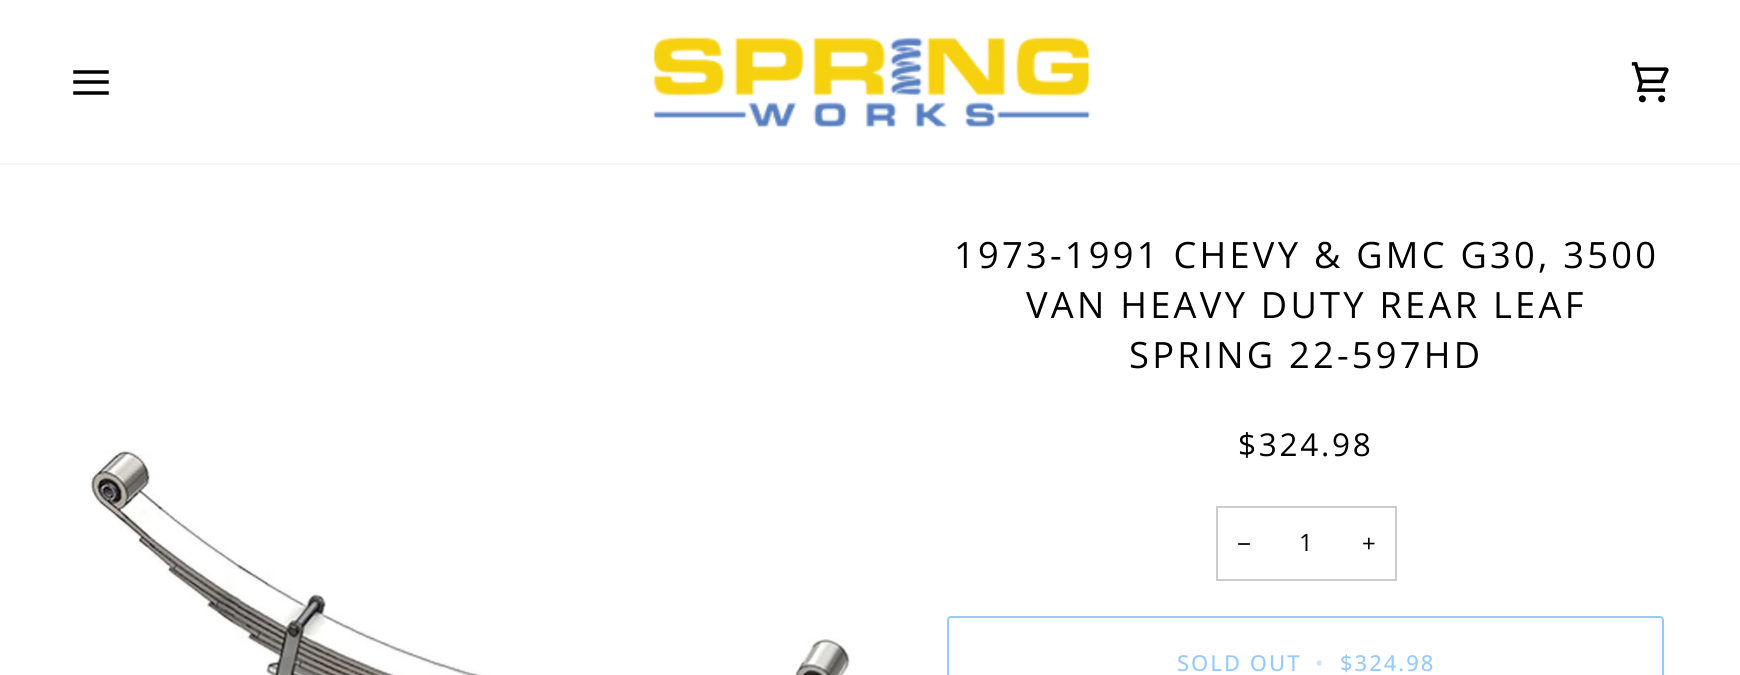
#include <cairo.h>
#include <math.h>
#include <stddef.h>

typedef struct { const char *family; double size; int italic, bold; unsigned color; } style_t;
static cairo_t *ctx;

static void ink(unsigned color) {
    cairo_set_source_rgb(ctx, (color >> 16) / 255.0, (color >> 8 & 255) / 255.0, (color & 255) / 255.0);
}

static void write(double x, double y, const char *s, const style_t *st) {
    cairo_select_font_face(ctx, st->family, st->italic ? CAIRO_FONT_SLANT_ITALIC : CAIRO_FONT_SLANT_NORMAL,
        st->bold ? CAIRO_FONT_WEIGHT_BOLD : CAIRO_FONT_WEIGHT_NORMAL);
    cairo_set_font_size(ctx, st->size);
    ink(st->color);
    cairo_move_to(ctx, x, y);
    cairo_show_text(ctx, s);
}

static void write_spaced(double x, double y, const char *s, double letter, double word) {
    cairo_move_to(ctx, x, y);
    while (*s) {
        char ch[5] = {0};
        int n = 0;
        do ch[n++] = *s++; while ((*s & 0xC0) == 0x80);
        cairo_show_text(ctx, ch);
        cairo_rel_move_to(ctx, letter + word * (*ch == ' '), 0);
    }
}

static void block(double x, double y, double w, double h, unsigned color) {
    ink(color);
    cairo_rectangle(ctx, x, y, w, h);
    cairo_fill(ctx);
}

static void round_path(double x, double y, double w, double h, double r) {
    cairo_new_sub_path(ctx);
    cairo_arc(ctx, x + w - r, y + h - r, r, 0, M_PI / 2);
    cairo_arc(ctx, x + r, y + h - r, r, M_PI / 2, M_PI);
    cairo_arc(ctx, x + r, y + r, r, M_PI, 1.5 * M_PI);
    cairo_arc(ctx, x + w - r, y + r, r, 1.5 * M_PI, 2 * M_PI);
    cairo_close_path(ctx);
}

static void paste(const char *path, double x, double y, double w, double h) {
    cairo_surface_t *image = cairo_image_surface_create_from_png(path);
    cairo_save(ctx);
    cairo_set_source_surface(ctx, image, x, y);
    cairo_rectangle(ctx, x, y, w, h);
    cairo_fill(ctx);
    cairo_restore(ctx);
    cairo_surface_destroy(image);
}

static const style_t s1 = {"Liberation Sans", 24, 0, 0, 0x000000};
static const style_t s2 = {"Open Sans", 24, 0, 0, 0x000000};

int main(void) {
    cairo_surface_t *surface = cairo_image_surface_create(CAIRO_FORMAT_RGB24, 1740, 675);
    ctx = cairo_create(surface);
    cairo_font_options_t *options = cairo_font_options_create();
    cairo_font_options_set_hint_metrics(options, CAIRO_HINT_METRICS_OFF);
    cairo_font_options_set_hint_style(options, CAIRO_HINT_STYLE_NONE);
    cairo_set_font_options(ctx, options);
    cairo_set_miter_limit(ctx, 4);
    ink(0xffffff);
    cairo_paint(ctx);
    block(0, 163, 1740, 2, 0xf7f5f4);
    cairo_new_path(ctx);
    cairo_move_to(ctx, 107, 72);
    cairo_line_to(ctx, 75, 72);
    cairo_move_to(ctx, 107, 82);
    cairo_line_to(ctx, 75, 82);
    cairo_move_to(ctx, 107, 93);
    cairo_line_to(ctx, 75, 93);
    ink(0x000000);
    cairo_set_line_width(ctx, 3.5);
    cairo_set_line_cap(ctx, CAIRO_LINE_CAP_SQUARE);
    cairo_stroke(ctx);
    paste("pic1.png", 652, 36, 439, 92);
    paste("pic2.png", 1631, 62, 38, 41);
    paste("pic3.png", 90, 450, 761, 225);
    cairo_select_font_face(ctx, "Open Sans", CAIRO_FONT_SLANT_NORMAL, CAIRO_FONT_WEIGHT_NORMAL);
    cairo_set_font_size(ctx, 36.25);
    write_spaced(954, 268, "1973-1991 CHEVY & GMC G30, 3500", 3.25, 0);
    write_spaced(1026, 318, "VAN HEAVY DUTY REAR LEAF", 3.25, 0);
    write_spaced(1129, 368, "SPRING 22-597HD", 3.25, 0);
    cairo_set_font_size(ctx, 31.5);
    write_spaced(1238, 456, "$324.98", 2.75, 0);
    cairo_rectangle(ctx, 1217, 507, 179, 73);
    ink(0xcccccc);
    cairo_set_line_width(ctx, 2);
    cairo_set_line_cap(ctx, CAIRO_LINE_CAP_BUTT);
    cairo_stroke(ctx);
    write(1237, 552, "−", &s1);
    write(1299, 551, "1", &s2);
    write(1362, 552, "+", &s2);
    round_path(948, 617, 715, 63, 3);
    ink(0x99caff);
    cairo_stroke(ctx);
    cairo_select_font_face(ctx, "Open Sans Medium", CAIRO_FONT_SLANT_NORMAL, CAIRO_FONT_WEIGHT_NORMAL);
    cairo_set_font_size(ctx, 22);
    write_spaced(1177, 671, "SOLD OUT", 2, 0);
    ink(0xcce5ff);
    write_spaced(1315, 671, "•", 2, 0);
    ink(0x99caff);
    write_spaced(1340, 671, "$324.98", 2, 0);
    cairo_surface_write_to_png(surface, "screenshot.png");
    cairo_font_options_destroy(options);
    cairo_destroy(ctx);
    cairo_surface_destroy(surface);
    return 0;
}
